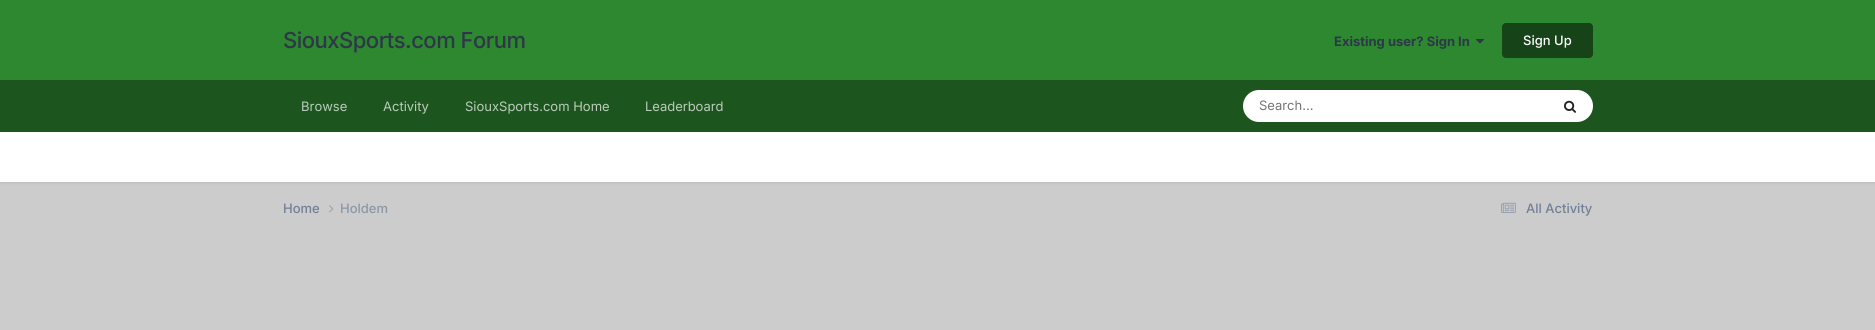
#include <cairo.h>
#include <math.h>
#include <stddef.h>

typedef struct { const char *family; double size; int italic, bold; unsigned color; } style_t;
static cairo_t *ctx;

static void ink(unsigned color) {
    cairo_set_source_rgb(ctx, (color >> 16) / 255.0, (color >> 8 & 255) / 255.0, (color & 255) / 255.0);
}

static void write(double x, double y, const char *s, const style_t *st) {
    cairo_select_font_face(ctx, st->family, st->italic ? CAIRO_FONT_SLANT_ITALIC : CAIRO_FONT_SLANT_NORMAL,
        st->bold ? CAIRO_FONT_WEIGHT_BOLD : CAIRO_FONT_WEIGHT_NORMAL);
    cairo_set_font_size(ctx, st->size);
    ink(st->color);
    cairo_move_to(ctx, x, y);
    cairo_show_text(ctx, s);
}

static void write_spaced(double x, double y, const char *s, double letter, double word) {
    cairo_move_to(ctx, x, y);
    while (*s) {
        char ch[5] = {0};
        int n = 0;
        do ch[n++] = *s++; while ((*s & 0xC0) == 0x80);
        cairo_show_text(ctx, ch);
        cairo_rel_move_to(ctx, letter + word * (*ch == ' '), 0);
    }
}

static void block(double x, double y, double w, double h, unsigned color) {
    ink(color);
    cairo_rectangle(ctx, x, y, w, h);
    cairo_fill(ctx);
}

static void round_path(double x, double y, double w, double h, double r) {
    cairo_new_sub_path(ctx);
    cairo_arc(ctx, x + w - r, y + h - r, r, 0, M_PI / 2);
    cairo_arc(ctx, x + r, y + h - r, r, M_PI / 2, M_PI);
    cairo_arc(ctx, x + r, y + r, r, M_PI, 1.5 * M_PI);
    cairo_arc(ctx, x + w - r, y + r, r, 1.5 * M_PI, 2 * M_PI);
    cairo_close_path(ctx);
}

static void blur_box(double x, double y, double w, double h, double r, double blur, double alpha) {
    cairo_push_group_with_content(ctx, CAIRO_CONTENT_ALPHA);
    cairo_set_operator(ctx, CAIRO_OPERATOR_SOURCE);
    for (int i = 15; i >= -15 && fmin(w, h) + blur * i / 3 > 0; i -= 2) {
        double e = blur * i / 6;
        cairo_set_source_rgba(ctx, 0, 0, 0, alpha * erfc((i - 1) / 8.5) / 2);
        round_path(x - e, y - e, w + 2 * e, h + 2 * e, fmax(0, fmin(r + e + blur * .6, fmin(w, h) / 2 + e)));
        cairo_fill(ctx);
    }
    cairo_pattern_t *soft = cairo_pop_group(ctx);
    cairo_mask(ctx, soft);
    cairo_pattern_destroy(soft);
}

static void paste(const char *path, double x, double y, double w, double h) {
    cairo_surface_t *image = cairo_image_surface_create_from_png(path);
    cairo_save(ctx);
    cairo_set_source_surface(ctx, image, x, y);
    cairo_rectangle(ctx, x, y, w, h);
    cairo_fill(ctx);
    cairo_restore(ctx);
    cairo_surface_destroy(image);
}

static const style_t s1 = {"Inter", 13, 0, 1, 0x2d3748};
static const style_t s2 = {"Inter Medium", 13, 0, 0, 0xffffff};
static const style_t s3 = {"Inter", 13, 0, 0, 0xbbccbc};
static const style_t s4 = {"Inter", 13, 0, 0, 0x757575};
static const style_t s5 = {"Inter Medium", 13, 0, 0, 0x718096};
static const style_t s6 = {"Inter Medium", 13, 0, 0, 0x8c97a6};

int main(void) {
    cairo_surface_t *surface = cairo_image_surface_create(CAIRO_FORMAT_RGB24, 1875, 330);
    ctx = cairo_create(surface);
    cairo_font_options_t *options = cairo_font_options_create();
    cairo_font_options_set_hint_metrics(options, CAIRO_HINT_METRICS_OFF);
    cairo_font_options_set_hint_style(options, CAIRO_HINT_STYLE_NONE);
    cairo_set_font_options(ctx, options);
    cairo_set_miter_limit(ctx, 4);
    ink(0xcccccc);
    cairo_paint(ctx);
    block(0, 0, 1875, 80, 0x2d8830);
    cairo_select_font_face(ctx, "Inter Medium", CAIRO_FONT_SLANT_NORMAL, CAIRO_FONT_WEIGHT_NORMAL);
    cairo_set_font_size(ctx, 22);
    ink(0x2d3748);
    write_spaced(283, 48, "SiouxSports.com Forum", -0.5, 0);
    write(1334, 46, "Existing user? Sign In", &s1);
    paste("pic1.png", 1476, 39, 8, 5);
    ink(0x164318);
    round_path(1502, 23, 91, 35, 4);
    cairo_fill(ctx);
    write(1523, 45, "Sign Up", &s2);
    block(0, 80, 1875, 52, 0x1c561e);
    write(301, 111, "Browse", &s3);
    write(383, 111, "Activity", &s3);
    write(465, 111, "SiouxSports.com Home", &s3);
    write(645, 111, "Leaderboard", &s3);
    ink(0xffffff);
    round_path(1243, 90, 350, 32, 16);
    cairo_fill(ctx);
    write(1259, 110, "Search...", &s4);
    paste("pic2.png", 1564, 100, 12, 13);
    ink(0x000000);
    blur_box(0, 133, 1875, 50, 0, 1, 0.1);
    block(0, 132, 1875, 50, 0xffffff);
    write(283, 213, "Home", &s5);
    paste("pic3.png", 329, 205, 5, 8);
    write(340, 213, "Holdem", &s6);
    paste("pic4.png", 1501, 202, 15, 11);
    write(1526, 213, "All Activity", &s5);
    cairo_surface_write_to_png(surface, "screenshot.png");
    cairo_font_options_destroy(options);
    cairo_destroy(ctx);
    cairo_surface_destroy(surface);
    return 0;
}
